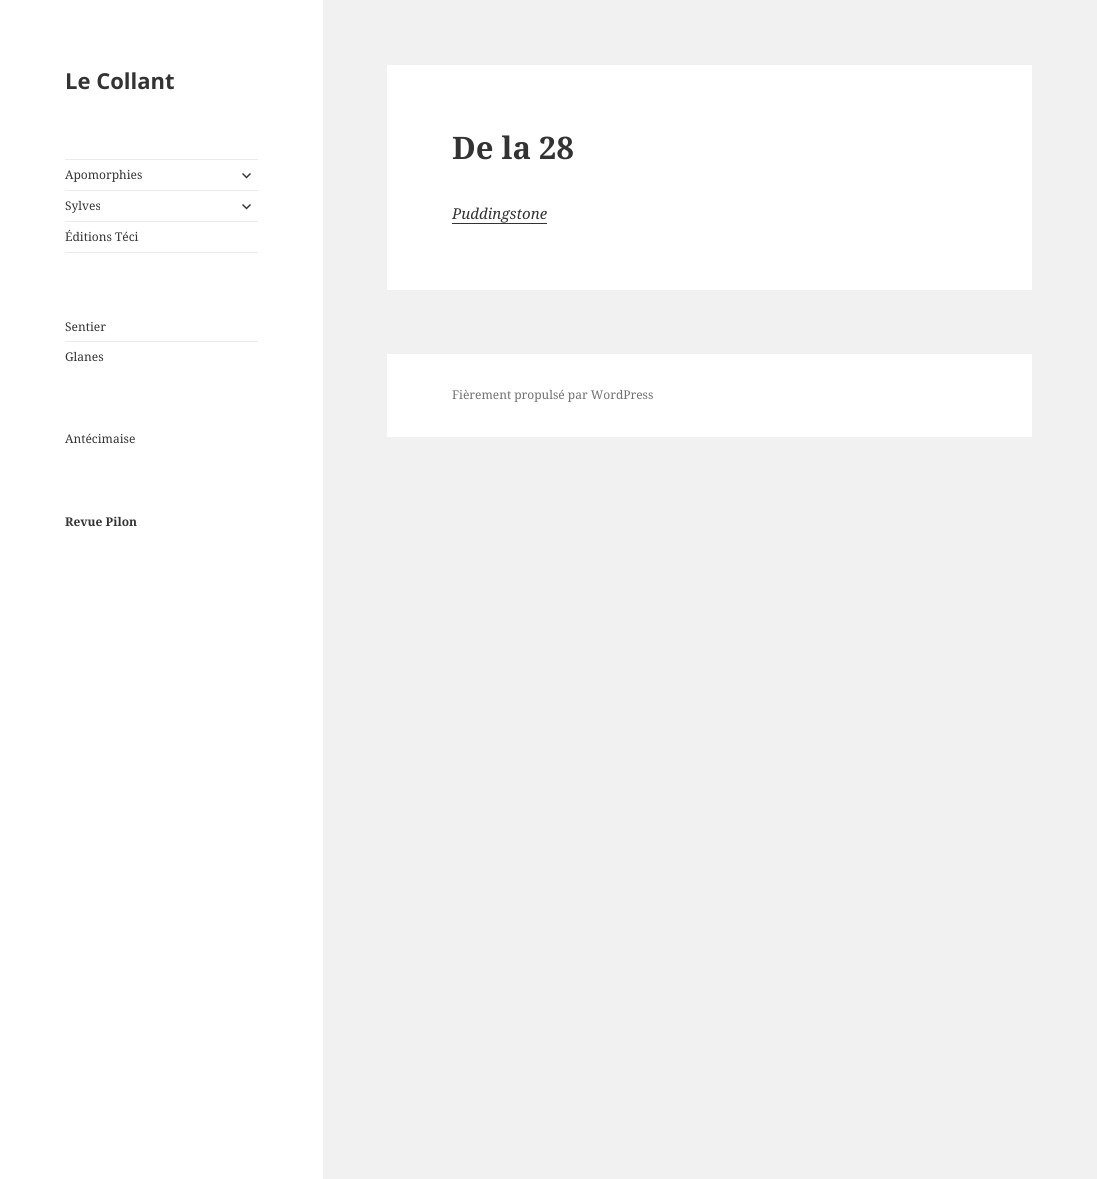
#include <cairo.h>
#include <math.h>
#include <stddef.h>

typedef struct { const char *family; double size; int italic, bold; unsigned color; } style_t;
static cairo_t *ctx;

static void ink(unsigned color) {
    cairo_set_source_rgb(ctx, (color >> 16) / 255.0, (color >> 8 & 255) / 255.0, (color & 255) / 255.0);
}

static void write(double x, double y, const char *s, const style_t *st) {
    cairo_select_font_face(ctx, st->family, st->italic ? CAIRO_FONT_SLANT_ITALIC : CAIRO_FONT_SLANT_NORMAL,
        st->bold ? CAIRO_FONT_WEIGHT_BOLD : CAIRO_FONT_WEIGHT_NORMAL);
    cairo_set_font_size(ctx, st->size);
    ink(st->color);
    cairo_move_to(ctx, x, y);
    cairo_show_text(ctx, s);
}

static void block(double x, double y, double w, double h, unsigned color) {
    ink(color);
    cairo_rectangle(ctx, x, y, w, h);
    cairo_fill(ctx);
}

static void paste(const char *path, double x, double y, double w, double h) {
    cairo_surface_t *image = cairo_image_surface_create_from_png(path);
    cairo_save(ctx);
    cairo_set_source_surface(ctx, image, x, y);
    cairo_rectangle(ctx, x, y, w, h);
    cairo_fill(ctx);
    cairo_restore(ctx);
    cairo_surface_destroy(image);
}

static const style_t s1 = {"Noto Sans", 22, 0, 1, 0x333333};
static const style_t s2 = {"Noto Serif", 12, 0, 0, 0x333333};
static const style_t s3 = {"Noto Serif", 12, 0, 1, 0x333333};
static const style_t s4 = {"Noto Serif", 31, 0, 1, 0x333333};
static const style_t s5 = {"Noto Serif", 15, 1, 0, 0x333333};
static const style_t s6 = {"Noto Serif", 12, 0, 0, 0x707070};

int main(void) {
    cairo_surface_t *surface = cairo_image_surface_create(CAIRO_FORMAT_RGB24, 1097, 1179);
    ctx = cairo_create(surface);
    cairo_font_options_t *options = cairo_font_options_create();
    cairo_font_options_set_hint_metrics(options, CAIRO_HINT_METRICS_OFF);
    cairo_font_options_set_hint_style(options, CAIRO_HINT_STYLE_NONE);
    cairo_set_font_options(ctx, options);
    cairo_set_miter_limit(ctx, 4);
    ink(0xf1f1f1);
    cairo_paint(ctx);
    block(0, 0, 323, 1179, 0xffffff);
    write(65, 89, "Le Collant", &s1);
    block(65, 159, 193, 1, 0xebebeb);
    block(65, 252, 193, 1, 0xebebeb);
    write(65, 179, "Apomorphies", &s2);
    paste("pic1.png", 242, 173, 9, 6);
    block(65, 190, 193, 1, 0xebebeb);
    write(65, 210, "Sylves", &s2);
    paste("pic1.png", 242, 204, 9, 6);
    block(65, 221, 193, 1, 0xebebeb);
    write(65, 241, "Éditions Téci", &s2);
    write(65, 331, "Sentier", &s2);
    block(65, 341, 193, 1, 0xebebeb);
    write(65, 361, "Glanes", &s2);
    write(65, 443, "Antécimaise", &s2);
    write(65, 526, "Revue Pilon", &s3);
    block(387, 65, 645, 225, 0xffffff);
    write(452, 159, "De la 28", &s4);
    write(452, 219, "Puddingstone", &s5);
    block(452, 223, 95, 1, 0x333333);
    block(387, 354, 645, 83, 0xffffff);
    write(452, 399, "Fièrement propulsé par WordPress", &s6);
    cairo_surface_write_to_png(surface, "screenshot.png");
    cairo_font_options_destroy(options);
    cairo_destroy(ctx);
    cairo_surface_destroy(surface);
    return 0;
}
